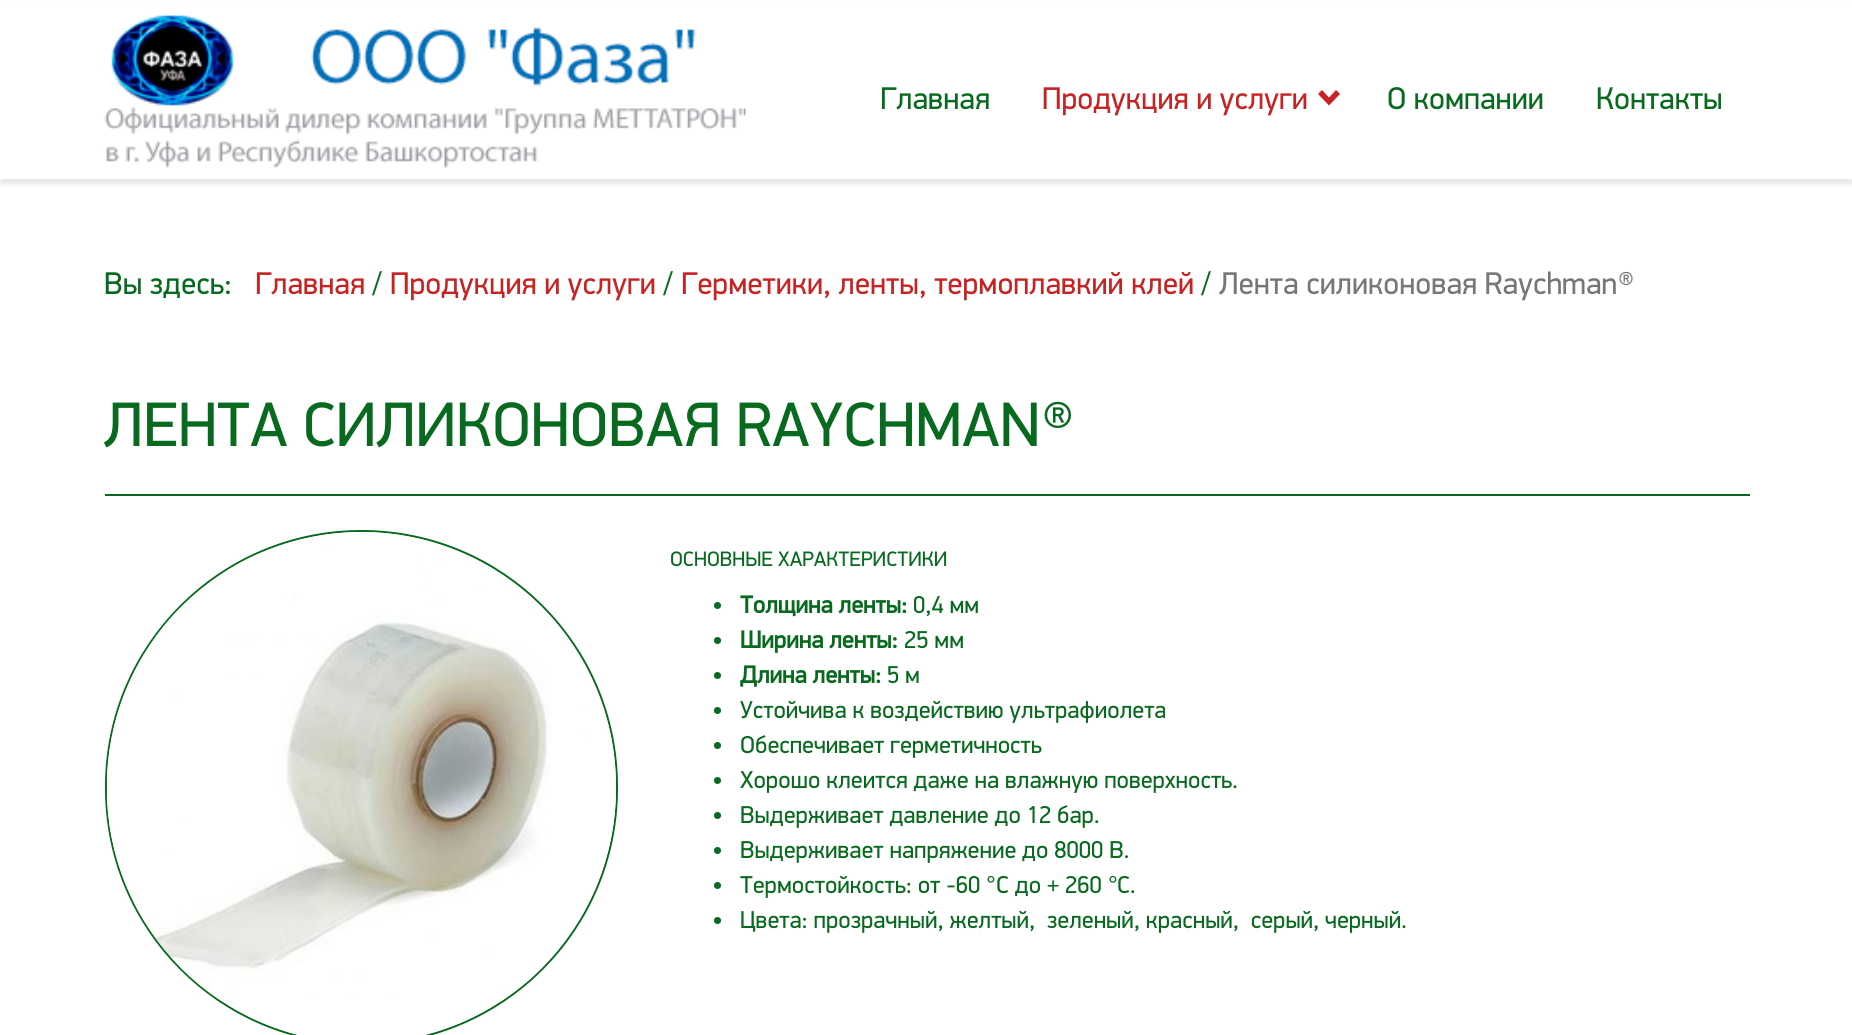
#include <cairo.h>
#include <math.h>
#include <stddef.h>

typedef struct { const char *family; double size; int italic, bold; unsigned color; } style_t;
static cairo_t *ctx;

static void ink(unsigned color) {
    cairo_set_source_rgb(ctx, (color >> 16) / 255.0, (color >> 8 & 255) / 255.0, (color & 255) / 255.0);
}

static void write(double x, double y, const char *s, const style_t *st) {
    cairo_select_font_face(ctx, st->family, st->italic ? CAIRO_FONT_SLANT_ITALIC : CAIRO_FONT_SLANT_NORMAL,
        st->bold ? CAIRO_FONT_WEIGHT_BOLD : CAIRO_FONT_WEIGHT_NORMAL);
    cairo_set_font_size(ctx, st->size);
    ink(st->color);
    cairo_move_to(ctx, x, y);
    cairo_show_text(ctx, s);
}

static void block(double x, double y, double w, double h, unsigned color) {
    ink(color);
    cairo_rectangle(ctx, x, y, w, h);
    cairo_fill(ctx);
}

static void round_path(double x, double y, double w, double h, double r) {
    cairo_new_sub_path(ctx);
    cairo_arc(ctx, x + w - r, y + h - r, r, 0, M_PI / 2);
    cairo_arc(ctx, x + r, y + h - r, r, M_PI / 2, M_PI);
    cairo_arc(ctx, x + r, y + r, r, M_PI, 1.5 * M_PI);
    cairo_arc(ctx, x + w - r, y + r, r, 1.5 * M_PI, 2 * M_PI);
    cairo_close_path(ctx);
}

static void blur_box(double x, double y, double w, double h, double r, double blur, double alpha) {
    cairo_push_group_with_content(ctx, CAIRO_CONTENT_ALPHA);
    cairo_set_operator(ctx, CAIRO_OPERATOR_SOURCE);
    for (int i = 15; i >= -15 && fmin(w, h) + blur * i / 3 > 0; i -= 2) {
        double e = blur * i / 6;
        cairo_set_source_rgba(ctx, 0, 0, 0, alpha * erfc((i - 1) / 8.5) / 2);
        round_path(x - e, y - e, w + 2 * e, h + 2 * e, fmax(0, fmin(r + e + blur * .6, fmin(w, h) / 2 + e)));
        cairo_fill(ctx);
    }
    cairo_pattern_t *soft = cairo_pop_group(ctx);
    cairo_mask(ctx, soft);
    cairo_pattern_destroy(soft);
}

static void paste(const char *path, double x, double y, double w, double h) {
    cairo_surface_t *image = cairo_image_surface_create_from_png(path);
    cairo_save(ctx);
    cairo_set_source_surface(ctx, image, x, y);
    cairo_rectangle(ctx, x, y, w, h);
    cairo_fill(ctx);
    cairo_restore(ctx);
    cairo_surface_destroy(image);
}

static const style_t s1 = {"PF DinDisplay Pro", 31.5, 0, 0, 0x076a1e};
static const style_t s2 = {"PF DinDisplay Pro", 31.5, 0, 0, 0xc82323};
static const style_t s3 = {"PF DinDisplay Pro", 31.5, 0, 0, 0x777777};
static const style_t s4 = {"PF DinDisplay Pro", 63, 0, 0, 0x076a1e};
static const style_t s5 = {"PF DinDisplay Pro", 21, 0, 0, 0x076a1e};
static const style_t s6 = {"PF DinDisplay Pro", 24.5, 0, 1, 0x076a1e};
static const style_t s7 = {"PF DinDisplay Pro", 24.5, 0, 0, 0x076a1e};
static const style_t s8 = {"Liberation Sans", 24.5, 0, 0, 0x076a1e};

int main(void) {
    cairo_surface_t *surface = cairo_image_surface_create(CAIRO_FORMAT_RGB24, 1852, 1035);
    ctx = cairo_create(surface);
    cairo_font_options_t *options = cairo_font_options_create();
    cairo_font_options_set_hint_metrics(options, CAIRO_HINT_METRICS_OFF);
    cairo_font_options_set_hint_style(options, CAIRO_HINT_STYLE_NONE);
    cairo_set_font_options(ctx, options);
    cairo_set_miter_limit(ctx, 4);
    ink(0xffffff);
    cairo_paint(ctx);
    ink(0x000000);
    blur_box(0, 5, 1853, 179, 0, 2.5, 0.1);
    block(0, 2, 1852, 177, 0xffffff);
    paste("pic1.png", 104, 15, 642, 153);
    write(880, 109, "Главная", &s1);
    write(1042, 109, "Продукция и услуги", &s2);
    cairo_new_path(ctx);
    cairo_move_to(ctx, 1340, 94);
    cairo_line_to(ctx, 1329, 105.5);
    cairo_line_to(ctx, 1318, 94);
    cairo_line_to(ctx, 1322, 90);
    cairo_line_to(ctx, 1329, 97.5);
    cairo_line_to(ctx, 1336, 90);
    cairo_close_path(ctx);
    cairo_fill(ctx);
    write(1387, 109, "О компании", &s1);
    write(1596, 109, "Контакты", &s1);
    write(104, 294, "Вы здесь:", &s1);
    write(255, 294, "Главная", &s2);
    write(372, 294, "/", &s1);
    write(390, 294, "Продукция и услуги", &s2);
    write(663, 294, "/", &s1);
    write(681, 294, "Герметики, ленты, термоплавкий клей", &s2);
    write(1201, 294, "/", &s1);
    write(1219, 294, "Лента силиконовая Raychman®", &s3);
    block(105, 494, 1645, 2, 0x076a1e);
    write(104, 446, "ЛЕНТА СИЛИКОНОВАЯ RAYCHMAN®", &s4);
    round_path(106, 531, 511, 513, 255.5);
    cairo_stroke(ctx);
    paste("pic2.png", 106, 532, 510, 503);
    write(670, 566, "ОСНОВНЫЕ ХАРАКТЕРИСТИКИ", &s5);
    cairo_new_path(ctx);
    cairo_arc(ctx, 717.5, 605.5, 3.5, 0, 2 * M_PI);
    cairo_fill(ctx);
    write(740, 613, "Толщина ленты:", &s6);
    write(913, 613, "0,4 мм", &s7);
    cairo_new_path(ctx);
    cairo_arc(ctx, 717.5, 640.5, 3.5, 0, 2 * M_PI);
    cairo_fill(ctx);
    write(740, 648, "Ширина ленты:", &s6);
    write(904, 648, "25 мм", &s7);
    cairo_new_path(ctx);
    cairo_arc(ctx, 717.5, 675.5, 3.5, 0, 2 * M_PI);
    cairo_fill(ctx);
    write(740, 683, "Длина ленты:", &s6);
    write(887, 683, "5 м", &s7);
    cairo_new_path(ctx);
    cairo_arc(ctx, 717.5, 710.5, 3.5, 0, 2 * M_PI);
    cairo_fill(ctx);
    write(740, 718, "Устойчива к воздействию ультрафиолета", &s7);
    cairo_new_path(ctx);
    cairo_arc(ctx, 717.5, 745.5, 3.5, 0, 2 * M_PI);
    cairo_fill(ctx);
    write(740, 753, "Обеспечивает герметичность", &s7);
    cairo_new_path(ctx);
    cairo_arc(ctx, 717.5, 780.5, 3.5, 0, 2 * M_PI);
    cairo_fill(ctx);
    write(740, 788, "Хорошо клеится даже на влажную поверхность.", &s7);
    cairo_new_path(ctx);
    cairo_arc(ctx, 717.5, 815.5, 3.5, 0, 2 * M_PI);
    cairo_fill(ctx);
    write(740, 823, "Выдерживает давление до 12 бар.", &s7);
    cairo_new_path(ctx);
    cairo_arc(ctx, 717.5, 850.5, 3.5, 0, 2 * M_PI);
    cairo_fill(ctx);
    write(740, 858, "Выдерживает напряжение до 8000 В.", &s7);
    cairo_new_path(ctx);
    cairo_arc(ctx, 717.5, 885.5, 3.5, 0, 2 * M_PI);
    cairo_fill(ctx);
    write(740, 893, "Термостойкость: от -60", &s7);
    write(986, 893, "°", &s8);
    write(996, 893, "C до + 260", &s7);
    write(1108, 893, "°", &s8);
    write(1117, 893, "C.", &s7);
    cairo_new_path(ctx);
    cairo_arc(ctx, 717.5, 920.5, 3.5, 0, 2 * M_PI);
    cairo_fill(ctx);
    write(740, 928, "Цвета: прозрачный, желтый,  зеленый, красный,  серый, черный.", &s7);
    cairo_surface_write_to_png(surface, "screenshot.png");
    cairo_font_options_destroy(options);
    cairo_destroy(ctx);
    cairo_surface_destroy(surface);
    return 0;
}
